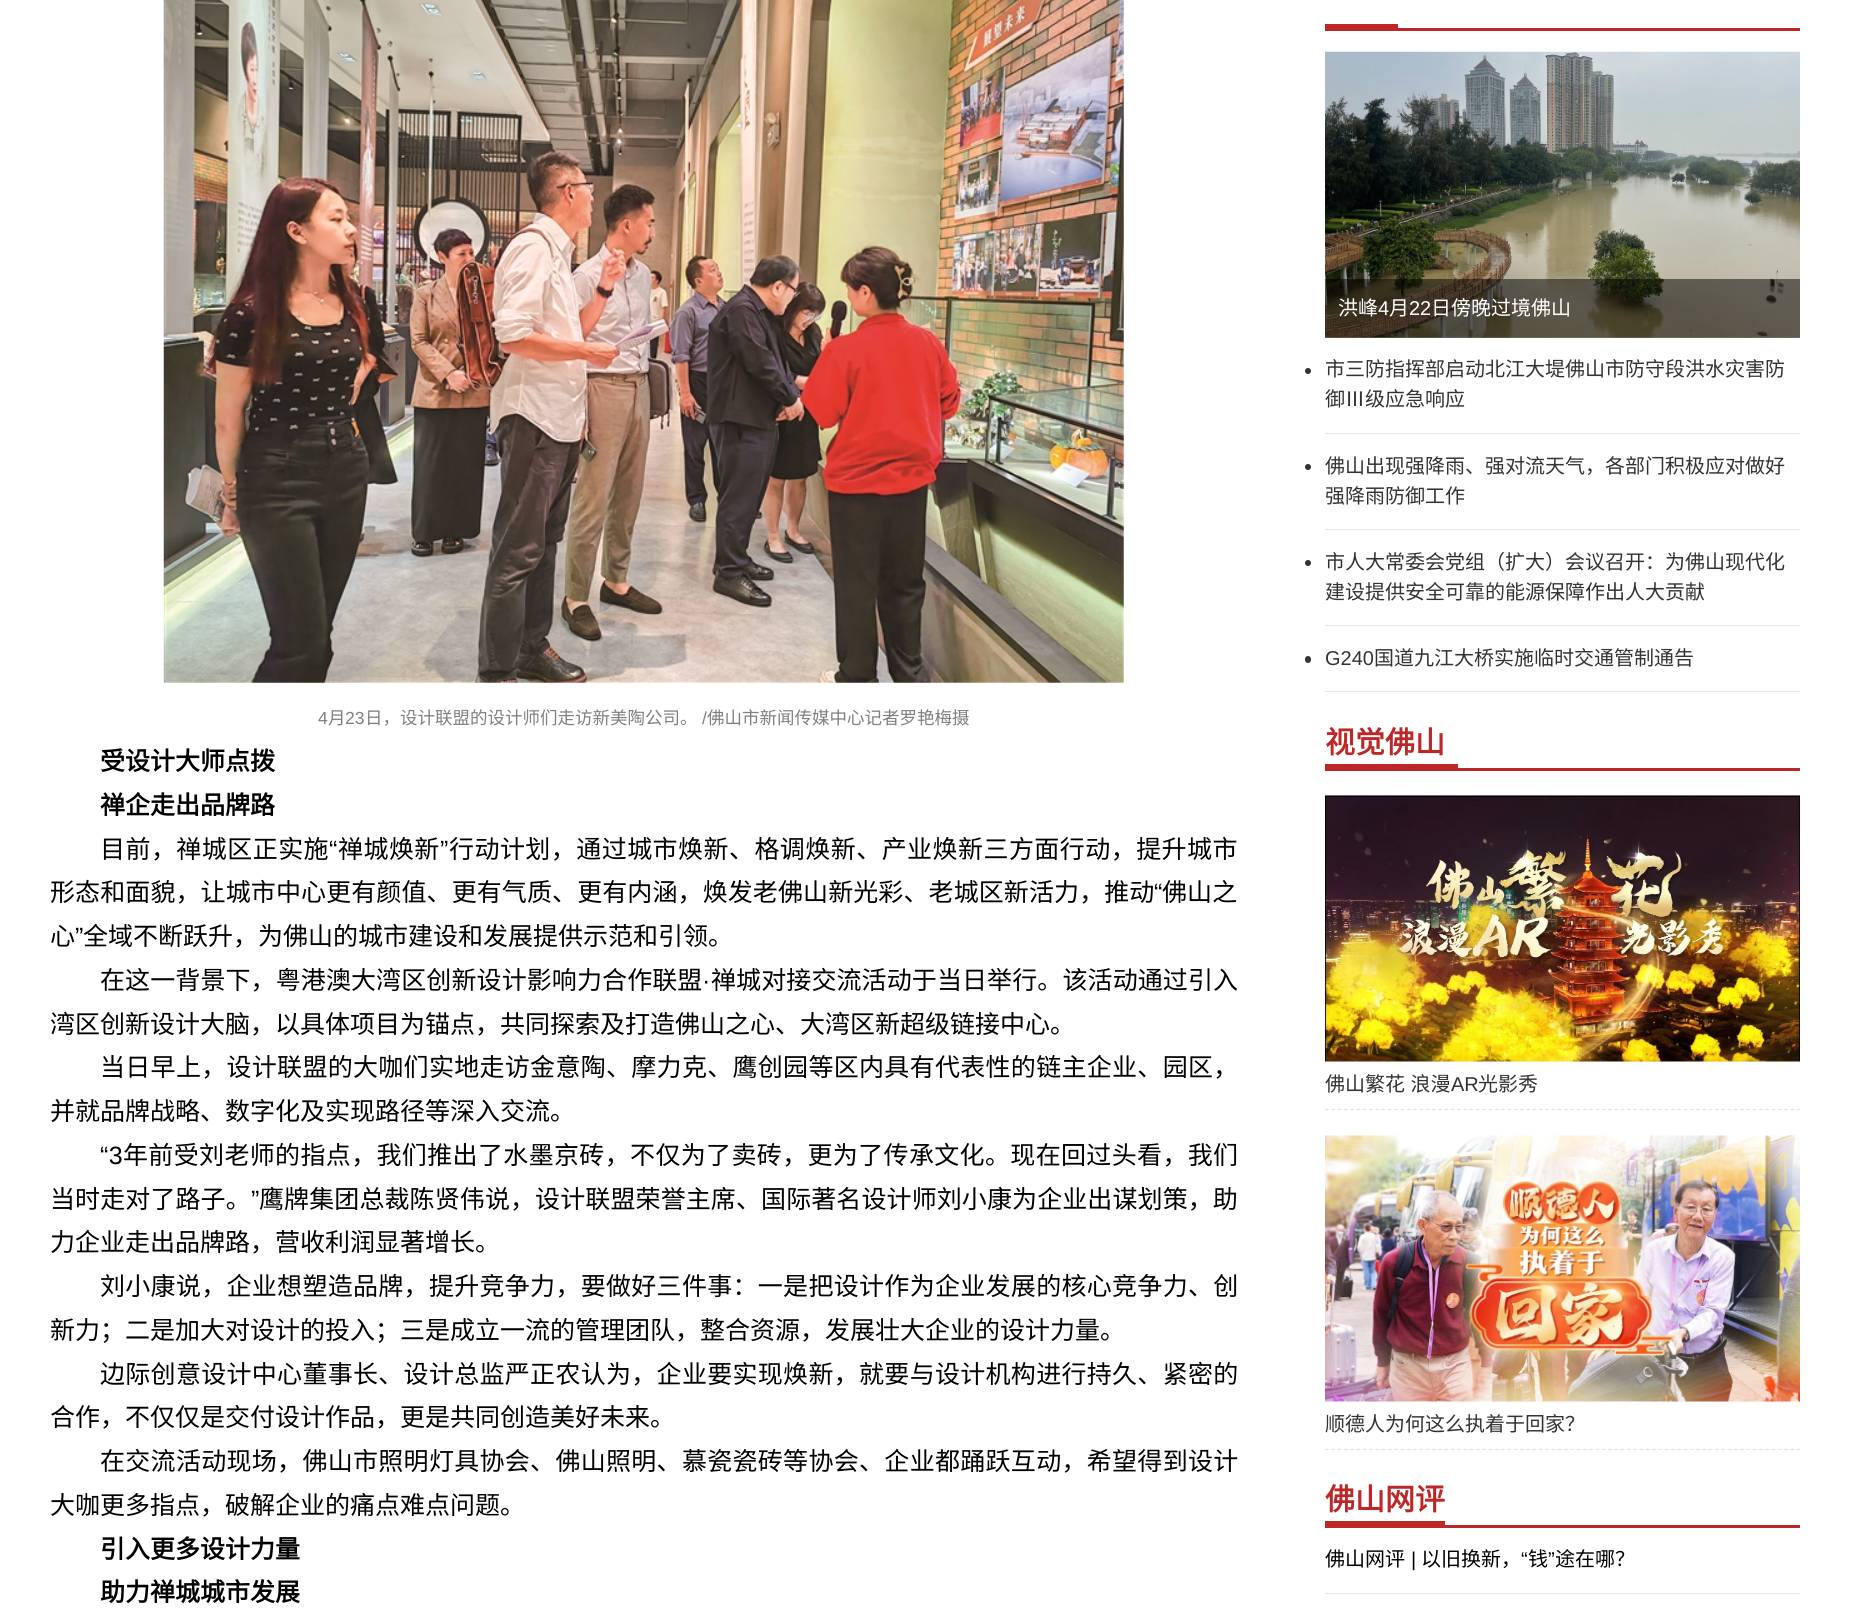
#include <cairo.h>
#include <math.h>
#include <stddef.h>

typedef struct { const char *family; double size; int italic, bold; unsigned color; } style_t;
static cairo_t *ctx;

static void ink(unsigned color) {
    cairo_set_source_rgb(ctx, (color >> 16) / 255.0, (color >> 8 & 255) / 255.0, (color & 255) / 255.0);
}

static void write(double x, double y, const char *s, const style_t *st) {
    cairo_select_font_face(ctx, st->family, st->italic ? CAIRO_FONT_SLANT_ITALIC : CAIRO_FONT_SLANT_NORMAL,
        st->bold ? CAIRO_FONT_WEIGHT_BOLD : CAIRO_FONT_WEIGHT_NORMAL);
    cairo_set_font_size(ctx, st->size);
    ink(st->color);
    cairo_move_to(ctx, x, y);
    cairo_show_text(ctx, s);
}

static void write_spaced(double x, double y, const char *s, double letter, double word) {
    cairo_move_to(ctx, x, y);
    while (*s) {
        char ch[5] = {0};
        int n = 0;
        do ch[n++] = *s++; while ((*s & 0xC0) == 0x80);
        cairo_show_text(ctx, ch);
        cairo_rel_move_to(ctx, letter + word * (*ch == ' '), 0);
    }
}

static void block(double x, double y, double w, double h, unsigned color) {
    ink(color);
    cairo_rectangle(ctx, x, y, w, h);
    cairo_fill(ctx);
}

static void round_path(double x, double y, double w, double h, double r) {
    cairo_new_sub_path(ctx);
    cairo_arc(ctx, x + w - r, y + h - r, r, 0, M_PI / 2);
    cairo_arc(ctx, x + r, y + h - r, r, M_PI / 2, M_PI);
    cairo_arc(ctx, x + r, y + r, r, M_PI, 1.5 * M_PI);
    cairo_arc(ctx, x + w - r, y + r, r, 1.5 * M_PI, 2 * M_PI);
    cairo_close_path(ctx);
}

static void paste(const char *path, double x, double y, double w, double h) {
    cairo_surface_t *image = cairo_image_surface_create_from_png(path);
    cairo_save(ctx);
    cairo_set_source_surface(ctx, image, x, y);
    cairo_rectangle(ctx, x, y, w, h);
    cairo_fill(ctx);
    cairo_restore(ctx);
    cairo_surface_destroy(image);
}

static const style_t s1 = {"Liberation Sans", 17.5, 0, 0, 0x7f7f7f};
static const style_t s2 = {"Noto Sans CJK SC", 17.5, 0, 0, 0x7f7f7f};
static const style_t s3 = {"Noto Sans CJK SC", 25, 0, 1, 0x000000};
static const style_t s4 = {"Noto Sans CJK SC", 25, 0, 0, 0x000000};
static const style_t s5 = {"Liberation Sans", 25, 0, 0, 0x000000};
static const style_t s6 = {"Noto Sans CJK SC", 20, 0, 0, 0xffffff};
static const style_t s7 = {"Liberation Sans", 20, 0, 0, 0xffffff};
static const style_t s8 = {"Noto Sans CJK SC", 20, 0, 0, 0x333333};
static const style_t s9 = {"Liberation Sans", 20, 0, 0, 0x333333};
static const style_t s10 = {"Noto Sans CJK SC", 30, 0, 1, 0xbd2728};
static const style_t s11 = {"Noto Sans CJK SC", 20, 0, 0, 0x000000};
static const style_t s12 = {"Liberation Sans", 20, 0, 0, 0x000000};

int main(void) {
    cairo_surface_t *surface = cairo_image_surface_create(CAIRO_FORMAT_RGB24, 1849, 1621);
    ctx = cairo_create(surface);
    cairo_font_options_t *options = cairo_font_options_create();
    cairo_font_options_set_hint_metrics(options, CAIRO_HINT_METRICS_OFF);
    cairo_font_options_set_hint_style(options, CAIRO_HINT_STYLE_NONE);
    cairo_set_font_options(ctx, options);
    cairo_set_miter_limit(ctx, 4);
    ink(0xffffff);
    cairo_paint(ctx);
    paste("pic1.png", 163, 0, 961, 683);
    write(318, 724, "4", &s1);
    write(328, 724, "月", &s2);
    write(345, 724, "23", &s1);
    write(365, 724, "日，设计联盟的设计师们走访新美陶公司。", &s2);
    write(702, 724, "/", &s1);
    write(707, 724, "佛山市新闻传媒中心记者罗艳梅摄", &s2);
    write(100, 770, "受设计大师点拨", &s3);
    write(100, 814, "禅企走出品牌路", &s3);
    cairo_select_font_face(ctx, "Noto Sans CJK SC", CAIRO_FONT_SLANT_NORMAL, CAIRO_FONT_WEIGHT_NORMAL);
    write_spaced(100, 858, "目前，禅城区正实施", 0.45, 0);
    cairo_select_font_face(ctx, "Liberation Sans", CAIRO_FONT_SLANT_NORMAL, CAIRO_FONT_WEIGHT_NORMAL);
    write_spaced(329, 858, "“", 0.45, 0);
    cairo_select_font_face(ctx, "Noto Sans CJK SC", CAIRO_FONT_SLANT_NORMAL, CAIRO_FONT_WEIGHT_NORMAL);
    write_spaced(338, 858, "禅城焕新", 0.45, 0);
    cairo_select_font_face(ctx, "Liberation Sans", CAIRO_FONT_SLANT_NORMAL, CAIRO_FONT_WEIGHT_NORMAL);
    write_spaced(440, 858, "”", 0.45, 0);
    cairo_select_font_face(ctx, "Noto Sans CJK SC", CAIRO_FONT_SLANT_NORMAL, CAIRO_FONT_WEIGHT_NORMAL);
    write_spaced(449, 858, "行动计划，通过城市焕新、格调焕新、产业焕新三方面行动，提升城市", 0.45, 0);
    write_spaced(50, 901, "形态和面貌，让城市中心更有颜值、更有气质、更有内涵，焕发老佛山新光彩、老城区新活力，推动", 0.1, 0);
    cairo_select_font_face(ctx, "Liberation Sans", CAIRO_FONT_SLANT_NORMAL, CAIRO_FONT_WEIGHT_NORMAL);
    write_spaced(1154, 901, "“", 0.1, 0);
    cairo_select_font_face(ctx, "Noto Sans CJK SC", CAIRO_FONT_SLANT_NORMAL, CAIRO_FONT_WEIGHT_NORMAL);
    write_spaced(1162, 901, "佛山之", 0.1, 0);
    write(50, 945, "心", &s4);
    write(75, 945, "”", &s5);
    write(83, 945, "全域不断跃升，为佛山的城市建设和发展提供示范和引领。", &s4);
    write_spaced(100, 989, "在这一背景下，粤港澳大湾区创新设计影响力合作联盟", 0.1, 0);
    cairo_select_font_face(ctx, "Liberation Sans", CAIRO_FONT_SLANT_NORMAL, CAIRO_FONT_WEIGHT_NORMAL);
    write_spaced(702, 989, "·", 0.1, 0);
    cairo_select_font_face(ctx, "Noto Sans CJK SC", CAIRO_FONT_SLANT_NORMAL, CAIRO_FONT_WEIGHT_NORMAL);
    write_spaced(711, 989, "禅城对接交流活动于当日举行。该活动通过引入", 0.1, 0);
    write(50, 1033, "湾区创新设计大脑，以具体项目为锚点，共同探索及打造佛山之心、大湾区新超级链接中心。", &s4);
    write_spaced(100, 1076, "当日早上，设计联盟的大咖们实地走访金意陶、摩力克、鹰创园等区内具有代表性的链主企业、园区，", 0.3, 0);
    write(50, 1120, "并就品牌战略、数字化及实现路径等深入交流。", &s4);
    cairo_select_font_face(ctx, "Liberation Sans", CAIRO_FONT_SLANT_NORMAL, CAIRO_FONT_WEIGHT_NORMAL);
    write_spaced(100, 1164, "“3", 0.35, 0);
    cairo_select_font_face(ctx, "Noto Sans CJK SC", CAIRO_FONT_SLANT_NORMAL, CAIRO_FONT_WEIGHT_NORMAL);
    write_spaced(123, 1164, "年前受刘老师的指点，我们推出了水墨京砖，不仅为了卖砖，更为了传承文化。现在回过头看，我们", 0.35, 0);
    write_spaced(50, 1208, "当时走对了路子。", 0.1, 0);
    cairo_select_font_face(ctx, "Liberation Sans", CAIRO_FONT_SLANT_NORMAL, CAIRO_FONT_WEIGHT_NORMAL);
    write_spaced(251, 1208, "”", 0.1, 0);
    cairo_select_font_face(ctx, "Noto Sans CJK SC", CAIRO_FONT_SLANT_NORMAL, CAIRO_FONT_WEIGHT_NORMAL);
    write_spaced(259, 1208, "鹰牌集团总裁陈贤伟说，设计联盟荣誉主席、国际著名设计师刘小康为企业出谋划策，助", 0.1, 0);
    write(50, 1251, "力企业走出品牌路，营收利润显著增长。", &s4);
    write_spaced(100, 1295, "刘小康说，企业想塑造品牌，提升竞争力，要做好三件事：一是把设计作为企业发展的核心竞争力、创", 0.3, 0);
    write(50, 1339, "新力；二是加大对设计的投入；三是成立一流的管理团队，整合资源，发展壮大企业的设计力量。", &s4);
    write_spaced(100, 1383, "边际创意设计中心董事长、设计总监严正农认为，企业要实现焕新，就要与设计机构进行持久、紧密的", 0.3, 0);
    write(50, 1426, "合作，不仅仅是交付设计作品，更是共同创造美好未来。", &s4);
    write_spaced(100, 1470, "在交流活动现场，佛山市照明灯具协会、佛山照明、慕瓷瓷砖等协会、企业都踊跃互动，希望得到设计", 0.3, 0);
    write(50, 1514, "大咖更多指点，破解企业的痛点难点问题。", &s4);
    write(100, 1558, "引入更多设计力量", &s3);
    write(100, 1601, "助力禅城城市发展", &s3);
    block(1325, 28, 475, 3, 0xbd2728);
    block(1325, 24, 73, 4, 0xbd2728);
    paste("pic2.png", 1325, 51, 475, 287);
    cairo_set_source_rgba(ctx, 0, 0, 0, 0.5);
    cairo_rectangle(ctx, 1325, 279, 475, 59);
    cairo_fill(ctx);
    write(1338, 315, "洪峰", &s6);
    write(1378, 315, "4", &s7);
    write(1389, 315, "月", &s6);
    write(1409, 315, "22", &s7);
    write(1431, 315, "日傍晚过境佛山", &s6);
    block(1325, 433, 475, 1, 0xe8e8e8);
    ink(0x333333);
    cairo_new_path(ctx);
    cairo_arc(ctx, 1308, 371, 3, 0, 2 * M_PI);
    cairo_fill(ctx);
    write(1325, 376, "市三防指挥部启动北江大堤佛山市防守段洪水灾害防", &s8);
    write(1325, 406, "御Ⅲ级应急响应", &s8);
    block(1325, 529, 475, 1, 0xe8e8e8);
    ink(0x333333);
    cairo_new_path(ctx);
    cairo_arc(ctx, 1308, 467, 3, 0, 2 * M_PI);
    cairo_fill(ctx);
    write(1325, 473, "佛山出现强降雨、强对流天气，各部门积极应对做好", &s8);
    write(1325, 503, "强降雨防御工作", &s8);
    block(1325, 625, 475, 1, 0xe8e8e8);
    ink(0x333333);
    cairo_new_path(ctx);
    cairo_arc(ctx, 1308, 563, 3, 0, 2 * M_PI);
    cairo_fill(ctx);
    write(1325, 569, "市人大常委会党组（扩大）会议召开：为佛山现代化", &s8);
    write(1325, 599, "建设提供安全可靠的能源保障作出人大贡献", &s8);
    block(1325, 691, 475, 1, 0xe8e8e8);
    ink(0x333333);
    round_path(1305, 656, 6, 7, 3);
    cairo_fill(ctx);
    write(1325, 665, "G240", &s9);
    write(1374, 665, "国道九江大桥实施临时交通管制通告", &s8);
    block(1325, 768, 475, 3, 0xbd2728);
    write(1325, 753, "视觉佛山", &s10);
    block(1325, 764, 133, 4, 0xbd2728);
    cairo_new_path(ctx);
    cairo_move_to(ctx, 1325, 1109.5);
    cairo_line_to(ctx, 1800, 1109.5);
    ink(0xe3e3e3);
    cairo_set_line_width(ctx, 1.2);
    cairo_set_dash(ctx, (double[]){3.75, 2.54}, 2, 0);
    cairo_stroke(ctx);
    paste("pic3.png", 1325, 795, 475, 267);
    cairo_select_font_face(ctx, "Noto Sans CJK SC", CAIRO_FONT_SLANT_NORMAL, CAIRO_FONT_WEIGHT_NORMAL);
    cairo_set_font_size(ctx, 20);
    ink(0x333333);
    write_spaced(1325, 1091, "佛山繁花 浪漫", 0, 1);
    write(1451, 1091, "AR", &s9);
    write(1478, 1091, "光影秀", &s8);
    cairo_new_path(ctx);
    cairo_move_to(ctx, 1325, 1449.5);
    cairo_line_to(ctx, 1800, 1449.5);
    ink(0xe3e3e3);
    cairo_stroke(ctx);
    paste("pic4.png", 1325, 1135, 475, 267);
    write(1325, 1431, "顺德人为何这么执着于回家？", &s8);
    block(1445, 1525, 355, 3, 0xbd2728);
    write(1325, 1510, "佛山网评", &s10);
    block(1325, 1521, 120, 7, 0xbd2728);
    block(1325, 1593, 475, 1, 0xe8e8e8);
    write(1325, 1566, "佛山网评", &s11);
    write(1411, 1566, "|", &s12);
    write(1421, 1566, "以旧换新，", &s11);
    write(1521, 1566, "“", &s12);
    write(1528, 1566, "钱", &s11);
    write(1548, 1566, "”", &s12);
    write(1555, 1566, "途在哪？", &s11);
    cairo_surface_write_to_png(surface, "screenshot.png");
    cairo_font_options_destroy(options);
    cairo_destroy(ctx);
    cairo_surface_destroy(surface);
    return 0;
}
